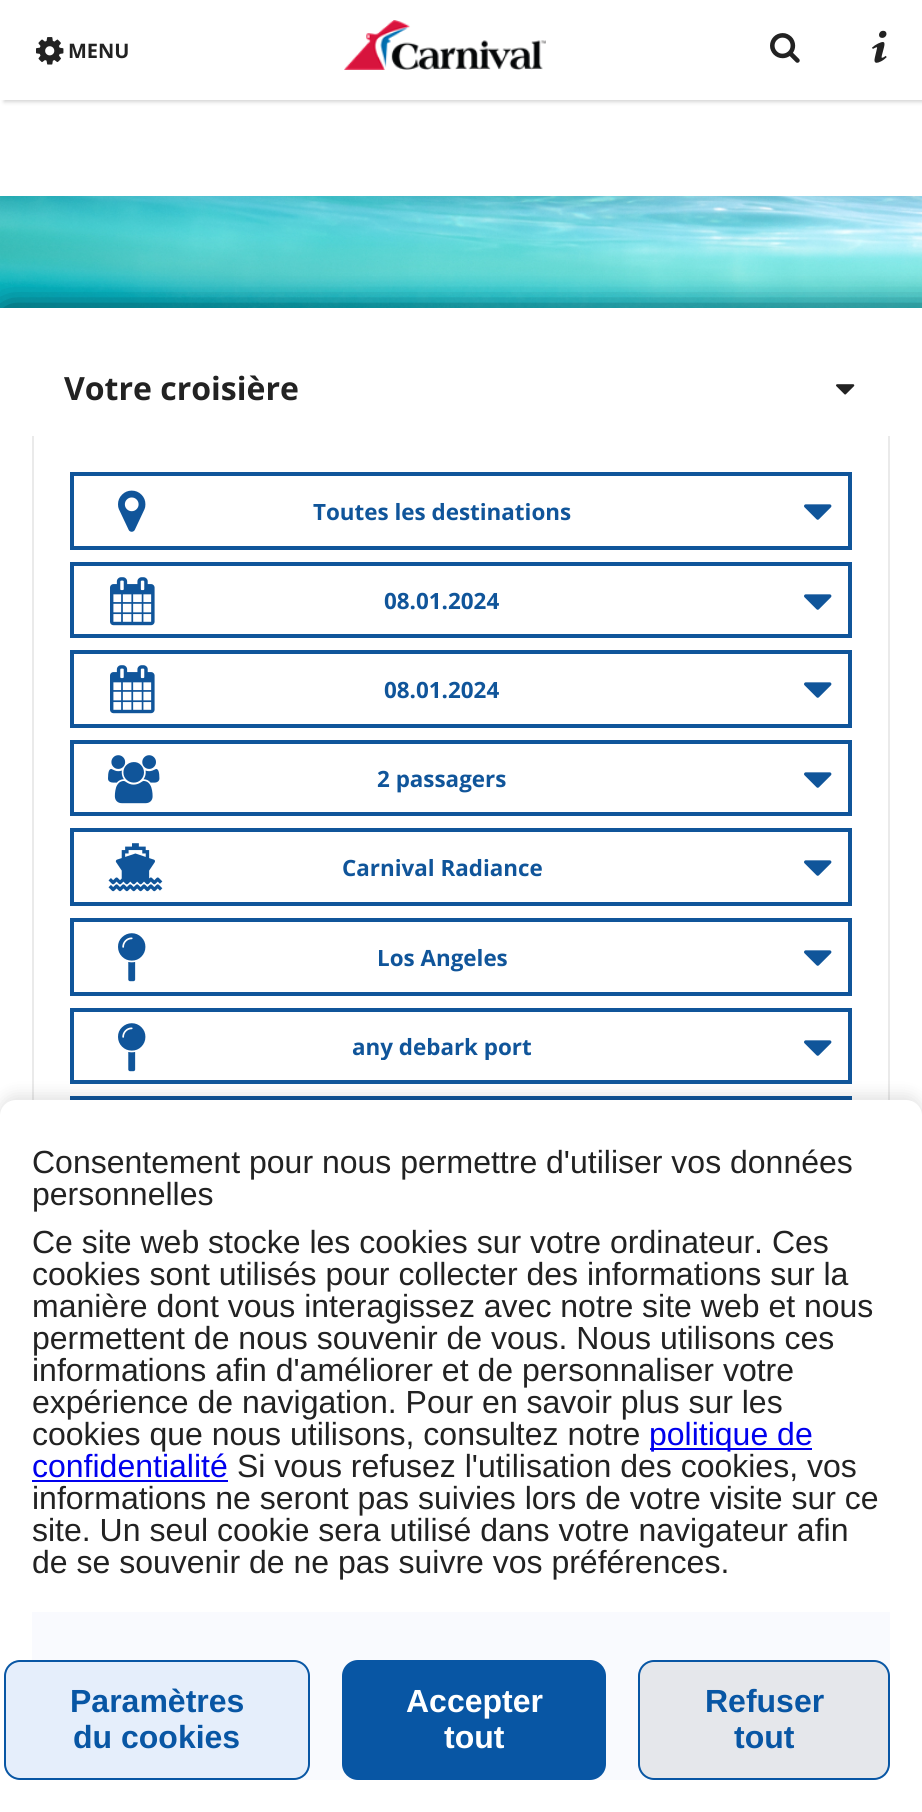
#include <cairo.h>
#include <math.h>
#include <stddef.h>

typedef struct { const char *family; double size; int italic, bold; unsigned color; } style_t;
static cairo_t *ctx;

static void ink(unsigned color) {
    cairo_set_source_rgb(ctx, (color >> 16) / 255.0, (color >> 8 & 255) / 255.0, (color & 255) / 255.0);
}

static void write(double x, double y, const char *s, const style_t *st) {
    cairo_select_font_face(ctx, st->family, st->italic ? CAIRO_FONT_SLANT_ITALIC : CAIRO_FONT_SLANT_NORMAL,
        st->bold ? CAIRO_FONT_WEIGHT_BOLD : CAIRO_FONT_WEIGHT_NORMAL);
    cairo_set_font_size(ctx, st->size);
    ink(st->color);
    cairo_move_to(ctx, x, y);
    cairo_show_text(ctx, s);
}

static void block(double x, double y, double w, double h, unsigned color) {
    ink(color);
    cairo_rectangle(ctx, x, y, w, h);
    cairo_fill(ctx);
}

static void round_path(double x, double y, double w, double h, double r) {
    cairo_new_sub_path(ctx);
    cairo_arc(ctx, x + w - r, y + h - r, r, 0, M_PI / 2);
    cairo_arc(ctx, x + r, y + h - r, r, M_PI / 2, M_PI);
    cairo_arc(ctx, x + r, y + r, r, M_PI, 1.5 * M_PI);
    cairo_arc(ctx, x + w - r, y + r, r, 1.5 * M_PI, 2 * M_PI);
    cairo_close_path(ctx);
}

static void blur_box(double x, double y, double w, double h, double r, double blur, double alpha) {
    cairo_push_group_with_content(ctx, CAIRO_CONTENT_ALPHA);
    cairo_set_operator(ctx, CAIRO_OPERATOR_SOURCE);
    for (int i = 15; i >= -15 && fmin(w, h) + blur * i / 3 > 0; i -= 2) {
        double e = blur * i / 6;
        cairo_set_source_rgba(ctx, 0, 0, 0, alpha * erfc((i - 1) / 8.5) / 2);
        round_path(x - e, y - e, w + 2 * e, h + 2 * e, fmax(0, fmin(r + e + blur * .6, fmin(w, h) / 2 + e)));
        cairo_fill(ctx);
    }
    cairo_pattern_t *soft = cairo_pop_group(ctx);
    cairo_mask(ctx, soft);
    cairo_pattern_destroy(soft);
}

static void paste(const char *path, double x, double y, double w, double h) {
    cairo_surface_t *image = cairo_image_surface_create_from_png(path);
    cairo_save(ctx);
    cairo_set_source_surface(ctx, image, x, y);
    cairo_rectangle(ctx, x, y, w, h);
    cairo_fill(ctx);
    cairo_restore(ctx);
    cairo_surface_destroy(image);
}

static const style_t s1 = {"Open Sans", 20, 0, 1, 0x222222};
static const style_t s2 = {"Open Sans", 32, 0, 1, 0x222222};
static const style_t s3 = {"Open Sans", 22.4, 0, 1, 0x10559a};
static const style_t s4 = {"Liberation Sans", 32, 0, 0, 0x222222};
static const style_t s5 = {"Liberation Sans", 32, 0, 0, 0x0000ee};
static const style_t s6 = {"Liberation Sans", 32, 0, 1, 0x0856a4};
static const style_t s7 = {"Liberation Sans", 32, 0, 1, 0xffffff};

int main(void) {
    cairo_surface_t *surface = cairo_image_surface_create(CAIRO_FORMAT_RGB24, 922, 1812);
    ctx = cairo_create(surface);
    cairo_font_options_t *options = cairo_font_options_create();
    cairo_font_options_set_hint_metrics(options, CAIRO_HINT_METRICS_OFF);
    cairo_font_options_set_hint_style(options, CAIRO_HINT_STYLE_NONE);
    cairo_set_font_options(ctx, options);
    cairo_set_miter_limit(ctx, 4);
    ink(0xffffff);
    cairo_paint(ctx);
    cairo_save(ctx);
    cairo_rectangle(ctx, 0, 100, 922, 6);
    cairo_clip(ctx);
    ink(0xd5d5d5);
    blur_box(4, 2, 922, 100, 0, 2, 1);
    cairo_restore(ctx);
    paste("pic1.png", 344, 20, 202, 50);
    paste("pic2.png", 36, 37, 28, 28);
    write(68, 58, "MENU", &s1);
    paste("pic3.png", 770, 33, 30, 30);
    paste("pic4.png", 872, 30, 15, 33);
    paste("pic5.png", 0, 196, 922, 112);
    ink(0x000000);
    blur_box(8, 316, 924, 1120, 0, 16, 1);
    block(0, 308, 922, 808, 0xffffff);
    write(64, 400, "Votre croisière", &s2);
    paste("pic6.png", 836, 384, 19, 11);
    block(888, 436, 2, 664, 0xeaeaea);
    block(32, 436, 2, 664, 0xeaeaea);
    cairo_rectangle(ctx, 72, 474, 778, 74);
    ink(0x10559a);
    cairo_set_line_width(ctx, 4);
    cairo_stroke(ctx);
    paste("pic7.png", 118, 490, 28, 42);
    write(313, 520, "Toutes les destinations", &s3);
    paste("pic8.png", 804, 504, 28, 16);
    cairo_rectangle(ctx, 72, 564, 778, 72);
    cairo_stroke(ctx);
    paste("pic9.png", 110, 577, 45, 49);
    write(384, 609, "08.01.2024", &s3);
    paste("pic8.png", 804, 594, 28, 16);
    cairo_rectangle(ctx, 72, 652, 778, 74);
    cairo_stroke(ctx);
    paste("pic9.png", 110, 665, 45, 49);
    write(384, 698, "08.01.2024", &s3);
    paste("pic8.png", 804, 682, 28, 16);
    cairo_rectangle(ctx, 72, 742, 778, 72);
    cairo_stroke(ctx);
    paste("pic10.png", 108, 755, 52, 49);
    write(377, 787, "2 passagers", &s3);
    paste("pic8.png", 804, 772, 28, 16);
    cairo_rectangle(ctx, 72, 830, 778, 74);
    cairo_stroke(ctx);
    paste("pic11.png", 108, 843, 55, 49);
    write(342, 876, "Carnival Radiance", &s3);
    paste("pic8.png", 804, 860, 28, 16);
    cairo_rectangle(ctx, 72, 920, 778, 74);
    cairo_stroke(ctx);
    paste("pic12.png", 118, 933, 28, 49);
    write(377, 966, "Los Angeles", &s3);
    paste("pic8.png", 804, 950, 28, 16);
    cairo_rectangle(ctx, 72, 1010, 778, 72);
    cairo_stroke(ctx);
    paste("pic12.png", 118, 1023, 28, 49);
    cairo_save(ctx);
    cairo_rectangle(ctx, 94, 1030, 696, 30);
    cairo_clip(ctx);
    write(352, 1055, "any debark port", &s3);
    cairo_restore(ctx);
    paste("pic8.png", 804, 1040, 28, 16);
    cairo_rectangle(ctx, 72, 1098, 778, 74);
    cairo_stroke(ctx);
    ink(0x000000);
    blur_box(0, 1096, 922, 712, 16, 8, 0.13);
    ink(0xffffff);
    cairo_new_path(ctx);
    cairo_move_to(ctx, 16, 1100);
    cairo_line_to(ctx, 906, 1100);
    cairo_curve_to(ctx, 915, 1100, 922, 1107, 922, 1116);
    cairo_line_to(ctx, 922, 1812);
    cairo_line_to(ctx, 0, 1812);
    cairo_line_to(ctx, 0, 1116);
    cairo_curve_to(ctx, 0, 1107, 7, 1100, 16, 1100);
    cairo_close_path(ctx);
    cairo_fill(ctx);
    write(32, 1173, "Consentement pour nous permettre d'utiliser vos données", &s4);
    write(32, 1205, "personnelles", &s4);
    write(32, 1253, "Ce site web stocke les cookies sur votre ordinateur. Ces", &s4);
    write(32, 1285, "cookies sont utilisés pour collecter des informations sur la", &s4);
    write(32, 1317, "manière dont vous interagissez avec notre site web et nous", &s4);
    write(32, 1349, "permettent de nous souvenir de vous. Nous utilisons ces", &s4);
    write(32, 1381, "informations afin d'améliorer et de personnaliser votre", &s4);
    write(32, 1413, "expérience de navigation. Pour en savoir plus sur les", &s4);
    write(32, 1445, "cookies que nous utilisons, consultez notre", &s4);
    block(650, 1448, 162, 2, 0x0000ee);
    write(649, 1445, "politique de", &s5);
    write(32, 1477, "confidentialité", &s5);
    block(32, 1480, 196, 2, 0x0000ee);
    write(237, 1477, "Si vous refusez l'utilisation des cookies, vos", &s4);
    write(32, 1509, "informations ne seront pas suivies lors de votre visite sur ce", &s4);
    write(32, 1541, "site. Un seul cookie sera utilisé dans votre navigateur afin", &s4);
    write(32, 1573, "de se souvenir de ne pas suivre vos préférences.", &s4);
    ink(0xf9fafe);
    cairo_new_path(ctx);
    cairo_move_to(ctx, 32, 1612);
    cairo_line_to(ctx, 890, 1612);
    cairo_line_to(ctx, 890, 1764);
    cairo_curve_to(ctx, 890, 1773, 883, 1780, 874, 1780);
    cairo_line_to(ctx, 48, 1780);
    cairo_curve_to(ctx, 39, 1780, 32, 1773, 32, 1764);
    cairo_close_path(ctx);
    cairo_fill(ctx);
    ink(0xe5eefb);
    round_path(5, 1661, 304, 118, 15);
    cairo_fill_preserve(ctx);
    ink(0x0856a4);
    cairo_set_line_width(ctx, 2);
    cairo_stroke(ctx);
    write(70, 1712, "Paramètres", &s6);
    write(73, 1748, "du cookies", &s6);
    round_path(342, 1660, 264, 120, 16);
    cairo_fill(ctx);
    write(406, 1712, "Accepter", &s7);
    write(444, 1748, "tout", &s7);
    ink(0xe5e7eb);
    round_path(639, 1661, 250, 118, 15);
    cairo_fill_preserve(ctx);
    ink(0x0856a4);
    cairo_stroke(ctx);
    write(705, 1712, "Refuser", &s6);
    write(734, 1748, "tout", &s6);
    cairo_surface_write_to_png(surface, "screenshot.png");
    cairo_font_options_destroy(options);
    cairo_destroy(ctx);
    cairo_surface_destroy(surface);
    return 0;
}
